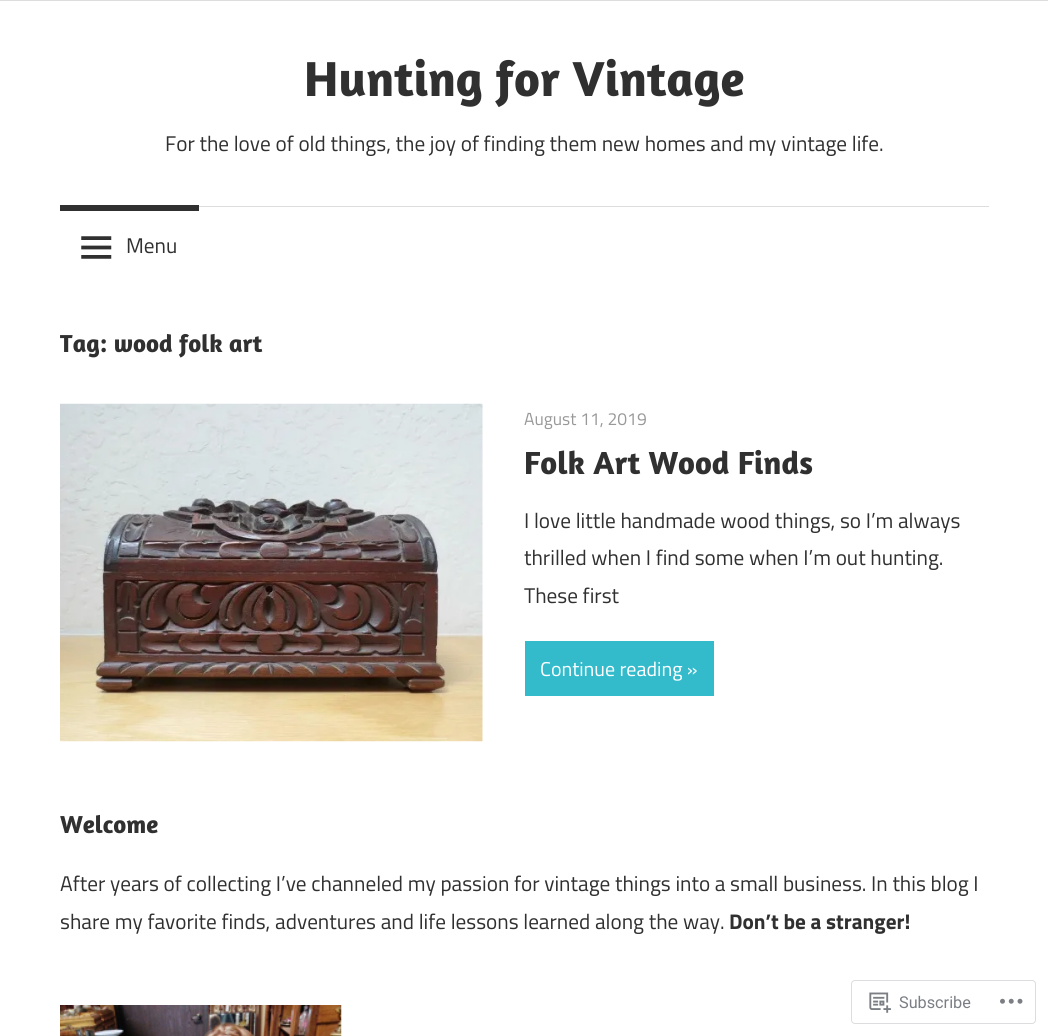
#include <cairo.h>
#include <math.h>
#include <stddef.h>

typedef struct { const char *family; double size; int italic, bold; unsigned color; } style_t;
static cairo_t *ctx;

static void ink(unsigned color) {
    cairo_set_source_rgb(ctx, (color >> 16) / 255.0, (color >> 8 & 255) / 255.0, (color & 255) / 255.0);
}

static void write(double x, double y, const char *s, const style_t *st) {
    cairo_select_font_face(ctx, st->family, st->italic ? CAIRO_FONT_SLANT_ITALIC : CAIRO_FONT_SLANT_NORMAL,
        st->bold ? CAIRO_FONT_WEIGHT_BOLD : CAIRO_FONT_WEIGHT_NORMAL);
    cairo_set_font_size(ctx, st->size);
    ink(st->color);
    cairo_move_to(ctx, x, y);
    cairo_show_text(ctx, s);
}

static void block(double x, double y, double w, double h, unsigned color) {
    ink(color);
    cairo_rectangle(ctx, x, y, w, h);
    cairo_fill(ctx);
}

static void round_path(double x, double y, double w, double h, double r) {
    cairo_new_sub_path(ctx);
    cairo_arc(ctx, x + w - r, y + h - r, r, 0, M_PI / 2);
    cairo_arc(ctx, x + r, y + h - r, r, M_PI / 2, M_PI);
    cairo_arc(ctx, x + r, y + r, r, M_PI, 1.5 * M_PI);
    cairo_arc(ctx, x + w - r, y + r, r, 1.5 * M_PI, 2 * M_PI);
    cairo_close_path(ctx);
}

static void paste(const char *path, double x, double y, double w, double h) {
    cairo_surface_t *image = cairo_image_surface_create_from_png(path);
    cairo_save(ctx);
    cairo_set_source_surface(ctx, image, x, y);
    cairo_rectangle(ctx, x, y, w, h);
    cairo_fill(ctx);
    cairo_restore(ctx);
    cairo_surface_destroy(image);
}

static const style_t s1 = {"Amaranth", 50, 0, 1, 0x303030};
static const style_t s2 = {"Titillium Web", 21.25, 0, 0, 0x303030};
static const style_t s3 = {"Amaranth", 25, 0, 1, 0x303030};
static const style_t s4 = {"Titillium Web", 17.5, 0, 0, 0x999999};
static const style_t s5 = {"Amaranth", 32.5, 0, 1, 0x303030};
static const style_t s6 = {"Titillium Web", 20, 0, 0, 0xffffff};
static const style_t s7 = {"Titillium Web", 21.25, 0, 1, 0x303030};
static const style_t s8 = {"Roboto", 16.25, 0, 0, 0x7b7f85};

int main(void) {
    cairo_surface_t *surface = cairo_image_surface_create(CAIRO_FORMAT_RGB24, 1048, 1036);
    ctx = cairo_create(surface);
    cairo_font_options_t *options = cairo_font_options_create();
    cairo_font_options_set_hint_metrics(options, CAIRO_HINT_METRICS_OFF);
    cairo_font_options_set_hint_style(options, CAIRO_HINT_STYLE_NONE);
    cairo_set_font_options(ctx, options);
    cairo_set_miter_limit(ctx, 4);
    ink(0xffffff);
    cairo_paint(ctx);
    block(0, 0, 1048, 1, 0xdddddd);
    write(304, 96, "Hunting for Vintage", &s1);
    write(165, 151, "For the love of old things, the joy of finding them new homes and my vintage life.", &s2);
    block(199, 206, 790, 1, 0xdddddd);
    block(60, 205, 139, 6, 0x303030);
    paste("pic1.png", 81, 236, 31, 23);
    write(126, 253, "Menu", &s2);
    write(60, 352, "Tag: wood folk art", &s3);
    paste("pic2.png", 60, 403, 423, 339);
    write(524, 425, "August 11, 2019", &s4);
    write(524, 474, "Folk Art Wood Finds", &s5);
    write(524, 528, "I love little handmade wood things, so I’m always", &s2);
    write(524, 565, "thrilled when I find some when I’m out hunting.", &s2);
    write(524, 603, "These first", &s2);
    block(525, 641, 189, 55, 0x33bbcc);
    write(540, 676, "Continue reading »", &s6);
    write(60, 833, "Welcome", &s3);
    write(60, 891, "After years of collecting I’ve channeled my passion for vintage things into a small business. In this blog I", &s2);
    write(60, 929, "share my favorite finds, adventures and life lessons learned along the way.", &s2);
    write(729, 929, "Don’t be a stranger!", &s7);
    paste("pic3.png", 60, 1005, 282, 31);
    round_path(851.5, 980.5, 184, 43, 3.5);
    ink(0xdddddf);
    cairo_set_line_width(ctx, 1);
    cairo_stroke(ctx);
    paste("pic4.png", 869, 992, 22, 21);
    write(899, 1008, "Subscribe", &s8);
    paste("pic5.png", 1000, 998, 23, 6);
    cairo_surface_write_to_png(surface, "screenshot.png");
    cairo_font_options_destroy(options);
    cairo_destroy(ctx);
    cairo_surface_destroy(surface);
    return 0;
}
